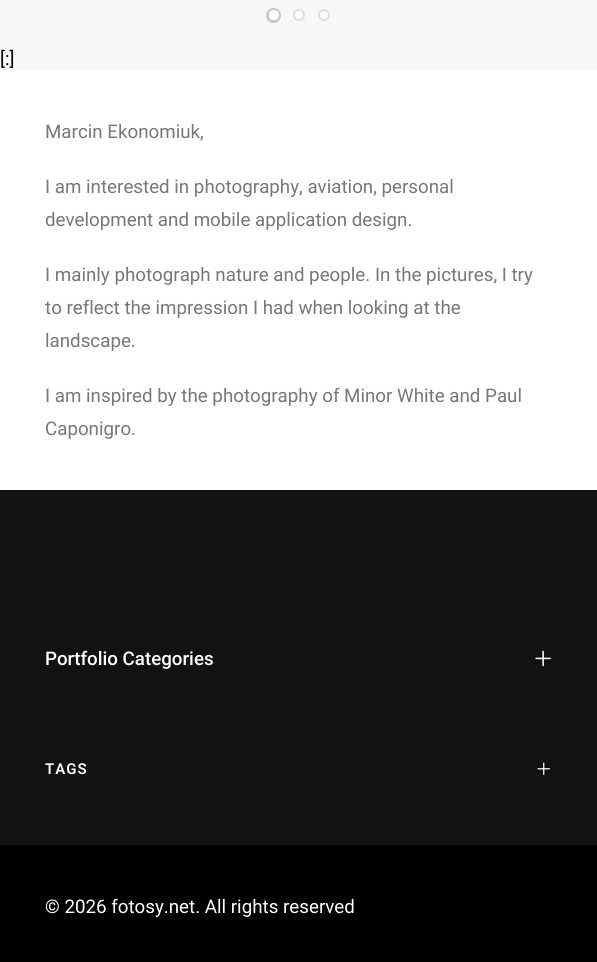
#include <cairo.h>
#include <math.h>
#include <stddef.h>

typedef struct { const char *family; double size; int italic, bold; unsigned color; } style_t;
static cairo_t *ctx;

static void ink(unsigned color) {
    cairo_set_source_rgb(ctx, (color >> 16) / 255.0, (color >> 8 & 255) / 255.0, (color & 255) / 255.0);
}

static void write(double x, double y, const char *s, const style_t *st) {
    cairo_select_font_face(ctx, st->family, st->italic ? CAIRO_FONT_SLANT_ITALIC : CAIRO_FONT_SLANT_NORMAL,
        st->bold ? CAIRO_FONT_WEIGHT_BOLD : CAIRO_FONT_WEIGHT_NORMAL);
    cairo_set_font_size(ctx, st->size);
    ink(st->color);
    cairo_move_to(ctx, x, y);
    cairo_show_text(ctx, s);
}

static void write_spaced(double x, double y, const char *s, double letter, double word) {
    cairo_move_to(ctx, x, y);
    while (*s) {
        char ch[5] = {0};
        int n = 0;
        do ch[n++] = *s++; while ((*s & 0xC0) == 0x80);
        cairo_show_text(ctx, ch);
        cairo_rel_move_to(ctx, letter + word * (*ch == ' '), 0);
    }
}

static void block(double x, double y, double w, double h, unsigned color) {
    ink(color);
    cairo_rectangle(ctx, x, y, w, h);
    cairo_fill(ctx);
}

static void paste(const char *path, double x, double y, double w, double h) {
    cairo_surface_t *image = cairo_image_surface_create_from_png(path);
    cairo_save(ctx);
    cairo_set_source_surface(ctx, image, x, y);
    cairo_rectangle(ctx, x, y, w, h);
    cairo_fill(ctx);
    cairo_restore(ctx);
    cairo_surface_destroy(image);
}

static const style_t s1 = {"Roboto", 18.75, 0, 0, 0x000000};
static const style_t s2 = {"Roboto", 18.75, 0, 0, 0x777777};
static const style_t s3 = {"Roboto Medium", 18.75, 0, 0, 0xffffff};
static const style_t s4 = {"Roboto", 18.75, 0, 0, 0xffffff};

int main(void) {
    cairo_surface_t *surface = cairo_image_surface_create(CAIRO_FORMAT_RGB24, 597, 962);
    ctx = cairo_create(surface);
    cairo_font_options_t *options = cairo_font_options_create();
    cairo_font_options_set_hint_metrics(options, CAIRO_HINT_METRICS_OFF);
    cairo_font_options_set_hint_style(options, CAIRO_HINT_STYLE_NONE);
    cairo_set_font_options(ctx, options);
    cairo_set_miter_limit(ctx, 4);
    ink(0xf7f7f7);
    cairo_paint(ctx);
    cairo_arc(ctx, 273.5, 15.5, 6, 0, 2 * M_PI);
    ink(0xc6c6c6);
    cairo_set_line_width(ctx, 3);
    cairo_stroke(ctx);
    ink(0xffffff);
    cairo_arc(ctx, 274, 15, 5, 0, 2 * M_PI);
    cairo_fill(ctx);
    cairo_arc(ctx, 299, 15, 5, 0, 2 * M_PI);
    ink(0xdedede);
    cairo_set_line_width(ctx, 2);
    cairo_stroke(ctx);
    ink(0xfbfbfb);
    cairo_arc(ctx, 299, 15, 4, 0, 2 * M_PI);
    cairo_fill(ctx);
    cairo_arc(ctx, 324, 15, 5, 0, 2 * M_PI);
    ink(0xdedede);
    cairo_stroke(ctx);
    ink(0xfbfbfb);
    cairo_arc(ctx, 324, 15, 4, 0, 2 * M_PI);
    cairo_fill(ctx);
    write(0, 65, "[:]", &s1);
    block(0, 70, 597, 420, 0xffffff);
    write(45, 138, "Marcin Ekonomiuk,", &s2);
    write(45, 193, "I am interested in photography, aviation, personal", &s2);
    write(45, 226, "development and mobile application design.", &s2);
    write(45, 281, "I mainly photograph nature and people. In the pictures, I try", &s2);
    write(45, 314, "to reflect the impression I had when looking at the", &s2);
    write(45, 347, "landscape.", &s2);
    write(45, 402, "I am inspired by the photography of Minor White and Paul", &s2);
    write(45, 435, "Caponigro.", &s2);
    block(0, 490, 597, 355, 0x101213);
    write(45, 665, "Portfolio Categories", &s3);
    paste("pic1.png", 535, 650, 16, 17);
    cairo_select_font_face(ctx, "Roboto SemiBold", CAIRO_FONT_SLANT_NORMAL, CAIRO_FONT_WEIGHT_NORMAL);
    cairo_set_font_size(ctx, 15);
    write_spaced(45, 774, "TAGS", 1, 0);
    paste("pic2.png", 537, 762, 13, 13);
    block(0, 845, 597, 117, 0x000000);
    write(45, 913, "© 2026 fotosy.net. All rights reserved", &s4);
    cairo_surface_write_to_png(surface, "screenshot.png");
    cairo_font_options_destroy(options);
    cairo_destroy(ctx);
    cairo_surface_destroy(surface);
    return 0;
}
